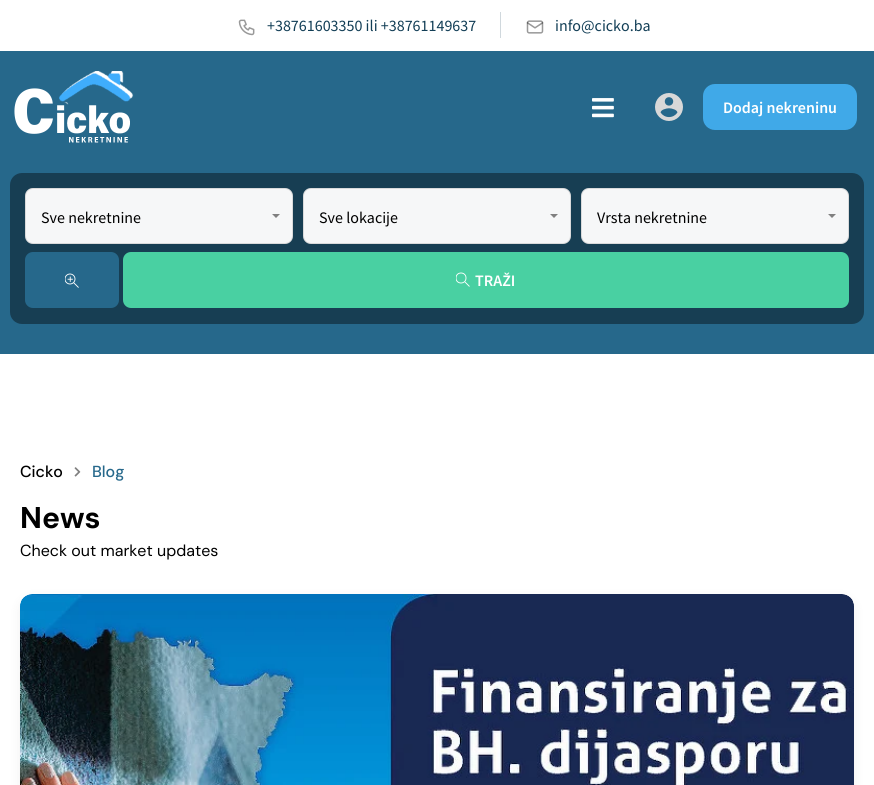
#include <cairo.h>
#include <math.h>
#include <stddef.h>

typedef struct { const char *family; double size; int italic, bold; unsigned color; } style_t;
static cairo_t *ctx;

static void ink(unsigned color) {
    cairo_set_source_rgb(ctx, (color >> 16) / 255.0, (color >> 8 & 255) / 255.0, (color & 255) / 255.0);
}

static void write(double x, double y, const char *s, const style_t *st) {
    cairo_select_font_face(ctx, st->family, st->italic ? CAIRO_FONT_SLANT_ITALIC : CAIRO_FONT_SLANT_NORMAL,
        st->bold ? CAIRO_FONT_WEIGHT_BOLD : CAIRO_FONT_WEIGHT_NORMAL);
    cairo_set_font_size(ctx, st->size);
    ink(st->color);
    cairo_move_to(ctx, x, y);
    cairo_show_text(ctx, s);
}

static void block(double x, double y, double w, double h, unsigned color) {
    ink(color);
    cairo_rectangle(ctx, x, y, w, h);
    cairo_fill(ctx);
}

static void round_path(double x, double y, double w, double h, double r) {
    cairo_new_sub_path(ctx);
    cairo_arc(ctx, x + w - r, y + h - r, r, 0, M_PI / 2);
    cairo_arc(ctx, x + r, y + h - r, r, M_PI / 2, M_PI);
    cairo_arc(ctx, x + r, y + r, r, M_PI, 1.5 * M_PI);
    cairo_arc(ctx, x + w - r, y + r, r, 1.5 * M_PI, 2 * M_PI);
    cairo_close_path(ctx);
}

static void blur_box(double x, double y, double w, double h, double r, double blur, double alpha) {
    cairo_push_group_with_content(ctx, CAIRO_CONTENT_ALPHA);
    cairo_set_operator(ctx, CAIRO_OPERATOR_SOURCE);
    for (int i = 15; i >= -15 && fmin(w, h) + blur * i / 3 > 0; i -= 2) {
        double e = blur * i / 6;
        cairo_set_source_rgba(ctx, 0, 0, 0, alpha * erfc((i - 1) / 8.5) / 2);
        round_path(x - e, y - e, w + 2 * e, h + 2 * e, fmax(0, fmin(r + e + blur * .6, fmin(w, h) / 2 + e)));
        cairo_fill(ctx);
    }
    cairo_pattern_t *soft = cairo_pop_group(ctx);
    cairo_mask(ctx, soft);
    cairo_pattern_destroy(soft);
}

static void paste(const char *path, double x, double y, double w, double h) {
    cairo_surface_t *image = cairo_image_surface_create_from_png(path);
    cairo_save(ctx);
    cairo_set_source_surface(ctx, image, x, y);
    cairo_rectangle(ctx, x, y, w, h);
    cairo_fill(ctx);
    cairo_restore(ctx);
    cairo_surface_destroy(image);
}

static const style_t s1 = {"Source Sans Pro", 16, 0, 0, 0x123e56};
static const style_t s2 = {"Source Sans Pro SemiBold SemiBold", 16, 0, 0, 0xffffff};
static const style_t s3 = {"Source Sans Pro", 16, 0, 0, 0x000000};
static const style_t s4 = {"DM Sans Medium", 16, 0, 0, 0x000000};
static const style_t s5 = {"DM Sans Medium", 16, 0, 0, 0x26688b};
static const style_t s6 = {"DM Sans", 30, 0, 1, 0x000000};
static const style_t s7 = {"DM Sans", 16, 0, 0, 0x000000};

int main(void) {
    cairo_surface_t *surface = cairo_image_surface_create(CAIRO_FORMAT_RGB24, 874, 785);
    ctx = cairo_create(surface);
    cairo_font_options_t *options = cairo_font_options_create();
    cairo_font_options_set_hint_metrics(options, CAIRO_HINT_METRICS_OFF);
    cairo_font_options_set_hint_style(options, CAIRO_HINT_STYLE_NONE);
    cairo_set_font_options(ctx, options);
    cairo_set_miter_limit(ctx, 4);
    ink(0xffffff);
    cairo_paint(ctx);
    block(500, 12, 1, 26, 0xd0d8dd);
    paste("pic1.png", 238, 19, 17, 17);
    write(267, 31, "+38761603350 ili +38761149637", &s1);
    paste("pic2.png", 526, 20, 18, 14);
    write(555, 31, "info@cicko.ba", &s1);
    block(0, 51, 874, 303, 0x26688b);
    paste("pic3.png", 14, 71, 120, 72);
    paste("pic4.png", 592, 98, 22, 20);
    paste("pic5.png", 655, 93, 28, 28);
    ink(0x40a9e8);
    round_path(703, 84, 154, 46, 12);
    cairo_fill(ctx);
    write(723, 113, "Dodaj nekreninu", &s2);
    ink(0x173e53);
    round_path(10, 173, 854, 151, 12);
    cairo_fill(ctx);
    ink(0xf6f7f8);
    round_path(25, 188, 268, 56, 8);
    cairo_fill(ctx);
    round_path(25.5, 188.5, 267, 55, 7.5);
    cairo_set_source_rgba(ctx, 0, 0, 0, 0.12);
    cairo_set_line_width(ctx, 1);
    cairo_stroke(ctx);
    write(41, 223, "Sve nekretnine", &s3);
    ink(0x808080);
    cairo_new_path(ctx);
    cairo_move_to(ctx, 272, 214);
    cairo_line_to(ctx, 280, 214);
    cairo_line_to(ctx, 276, 218);
    cairo_close_path(ctx);
    cairo_fill(ctx);
    ink(0xf6f7f8);
    round_path(303, 188, 268, 56, 8);
    cairo_fill(ctx);
    round_path(303.5, 188.5, 267, 55, 7.5);
    cairo_set_source_rgba(ctx, 0, 0, 0, 0.12);
    cairo_stroke(ctx);
    write(319, 223, "Sve lokacije", &s3);
    ink(0x808080);
    cairo_new_path(ctx);
    cairo_move_to(ctx, 550, 214);
    cairo_line_to(ctx, 558, 214);
    cairo_line_to(ctx, 554, 218);
    cairo_close_path(ctx);
    cairo_fill(ctx);
    ink(0xf6f7f8);
    round_path(581, 188, 268, 56, 8);
    cairo_fill(ctx);
    round_path(581.5, 188.5, 267, 55, 7.5);
    cairo_set_source_rgba(ctx, 0, 0, 0, 0.12);
    cairo_stroke(ctx);
    write(597, 223, "Vrsta nekretnine", &s3);
    ink(0x808080);
    cairo_new_path(ctx);
    cairo_move_to(ctx, 828, 214);
    cairo_line_to(ctx, 836, 214);
    cairo_line_to(ctx, 832, 218);
    cairo_close_path(ctx);
    cairo_fill(ctx);
    ink(0x26688b);
    round_path(25, 252, 94, 56, 8);
    cairo_fill(ctx);
    paste("pic6.png", 65, 273, 14, 15);
    ink(0x49d0a2);
    round_path(123, 252, 726, 56, 8);
    cairo_fill(ctx);
    cairo_save(ctx);
    cairo_rectangle(ctx, 456, 252, 14, 56);
    cairo_clip(ctx);
    cairo_arc(ctx, 461, 278, 5, 0, 2 * M_PI);
    ink(0xffffff);
    cairo_set_line_width(ctx, 0.9);
    cairo_stroke(ctx);
    cairo_restore(ctx);
    cairo_new_path(ctx);
    cairo_move_to(ctx, 465, 282);
    cairo_line_to(ctx, 469.5, 286.5);
    ink(0xffffff);
    cairo_set_line_width(ctx, 0.9);
    cairo_set_line_join(ctx, CAIRO_LINE_JOIN_ROUND);
    cairo_stroke(ctx);
    write(475, 286, "TRAŽI", &s2);
    write(20, 477, "Cicko", &s4);
    paste("pic7.png", 74, 467, 7, 10);
    write(92, 477, "Blog", &s5);
    write(20, 528, "News", &s6);
    write(20, 556, "Check out market updates", &s7);
    ink(0x000000);
    blur_box(20, 598, 834, 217, 12, 6, 0.06);
    paste("pic8.png", 20, 594, 834, 191);
    cairo_surface_write_to_png(surface, "screenshot.png");
    cairo_font_options_destroy(options);
    cairo_destroy(ctx);
    cairo_surface_destroy(surface);
    return 0;
}
